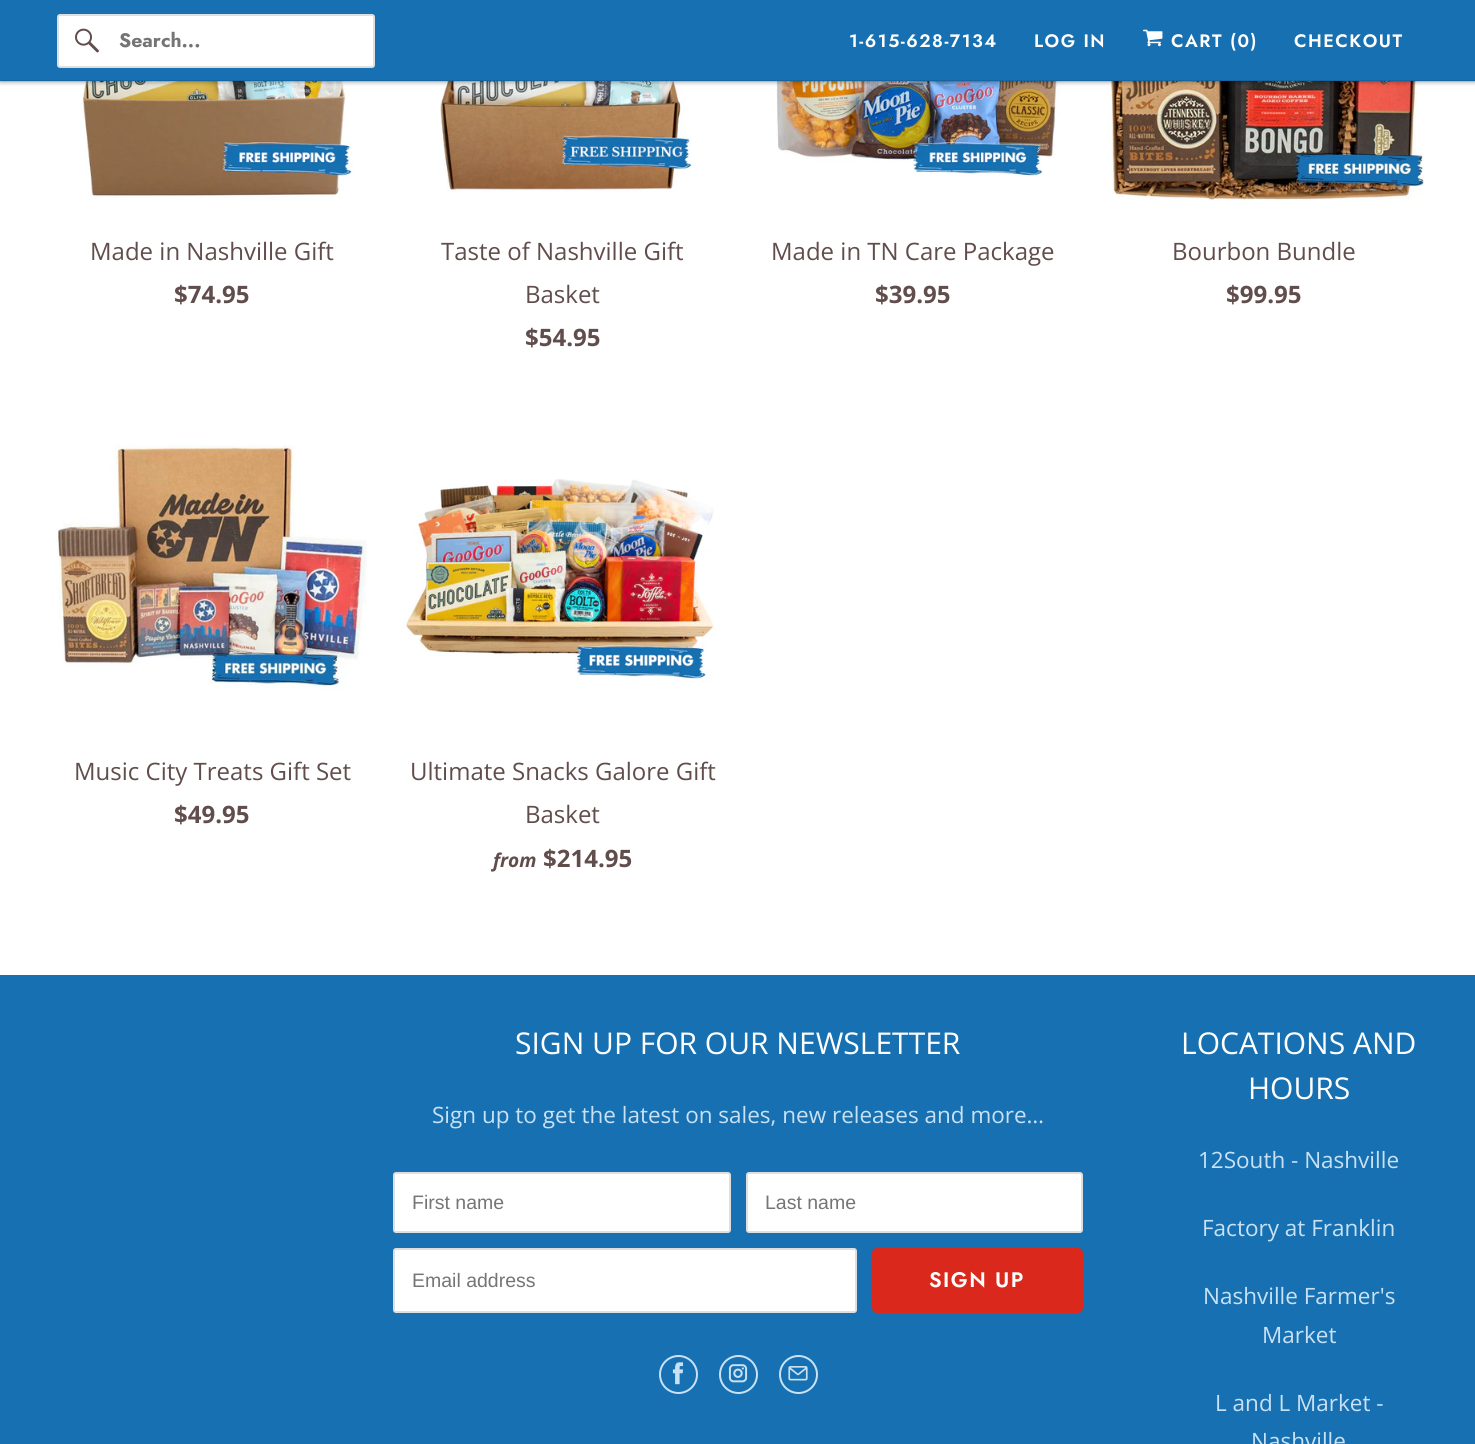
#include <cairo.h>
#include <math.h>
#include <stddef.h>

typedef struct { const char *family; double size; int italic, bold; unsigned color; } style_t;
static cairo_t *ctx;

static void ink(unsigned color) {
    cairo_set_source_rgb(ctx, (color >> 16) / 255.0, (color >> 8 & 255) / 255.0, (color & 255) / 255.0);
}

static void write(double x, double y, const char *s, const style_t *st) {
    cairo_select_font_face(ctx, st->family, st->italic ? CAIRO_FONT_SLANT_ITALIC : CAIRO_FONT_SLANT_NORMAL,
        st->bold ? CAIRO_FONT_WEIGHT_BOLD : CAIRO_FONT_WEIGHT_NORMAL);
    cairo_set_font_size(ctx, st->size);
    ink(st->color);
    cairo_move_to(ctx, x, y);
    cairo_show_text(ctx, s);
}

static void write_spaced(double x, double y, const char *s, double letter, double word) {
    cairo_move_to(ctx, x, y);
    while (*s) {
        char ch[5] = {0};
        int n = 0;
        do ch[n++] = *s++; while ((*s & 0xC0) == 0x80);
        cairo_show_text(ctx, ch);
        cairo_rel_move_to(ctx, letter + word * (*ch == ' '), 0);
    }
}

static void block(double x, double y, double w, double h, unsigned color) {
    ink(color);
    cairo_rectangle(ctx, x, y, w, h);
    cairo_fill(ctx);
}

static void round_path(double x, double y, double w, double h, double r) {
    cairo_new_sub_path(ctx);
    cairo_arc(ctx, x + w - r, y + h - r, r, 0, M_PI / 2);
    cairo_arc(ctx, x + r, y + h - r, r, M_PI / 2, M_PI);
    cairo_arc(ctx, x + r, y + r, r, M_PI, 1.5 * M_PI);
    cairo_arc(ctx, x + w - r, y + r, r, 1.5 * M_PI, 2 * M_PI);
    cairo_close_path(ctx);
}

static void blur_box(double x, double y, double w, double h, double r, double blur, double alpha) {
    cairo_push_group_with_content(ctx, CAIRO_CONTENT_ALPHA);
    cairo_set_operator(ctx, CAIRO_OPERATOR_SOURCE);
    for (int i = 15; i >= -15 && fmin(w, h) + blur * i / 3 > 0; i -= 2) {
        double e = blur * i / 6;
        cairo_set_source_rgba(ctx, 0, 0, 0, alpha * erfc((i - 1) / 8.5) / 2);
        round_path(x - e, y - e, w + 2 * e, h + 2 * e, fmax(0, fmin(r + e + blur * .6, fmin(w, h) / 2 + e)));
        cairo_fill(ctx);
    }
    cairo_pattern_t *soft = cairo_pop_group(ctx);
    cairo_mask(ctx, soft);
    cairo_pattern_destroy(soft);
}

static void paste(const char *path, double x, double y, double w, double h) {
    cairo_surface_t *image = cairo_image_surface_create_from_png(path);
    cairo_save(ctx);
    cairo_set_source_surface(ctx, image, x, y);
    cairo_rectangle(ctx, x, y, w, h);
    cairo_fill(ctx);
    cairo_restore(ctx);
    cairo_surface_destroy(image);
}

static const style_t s1 = {"Jost", 19.5, 0, 1, 0x757575};
static const style_t s2 = {"Open Sans", 24, 0, 0, 0x614d4b};
static const style_t s3 = {"Open Sans", 24, 0, 1, 0x614d4b};
static const style_t s4 = {"Open Sans", 19, 1, 1, 0x614d4b};
static const style_t s5 = {"Open Sans", 30, 0, 0, 0xffffff};
static const style_t s6 = {"Open Sans", 22.5, 0, 0, 0xc9e1f5};
static const style_t s7 = {"Liberation Sans", 19.5, 0, 0, 0x757575};

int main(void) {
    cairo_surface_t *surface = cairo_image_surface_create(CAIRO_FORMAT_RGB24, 1475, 1444);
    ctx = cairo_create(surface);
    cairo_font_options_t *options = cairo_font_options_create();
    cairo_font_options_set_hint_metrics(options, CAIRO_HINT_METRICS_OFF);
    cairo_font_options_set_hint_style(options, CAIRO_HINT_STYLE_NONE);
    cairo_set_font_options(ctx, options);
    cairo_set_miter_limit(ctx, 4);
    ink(0xffffff);
    cairo_paint(ctx);
    paste("pic3.png", 81, 81, 275, 119);
    paste("pic4.png", 440, 81, 252, 112);
    paste("pic5.png", 757, 81, 306, 95);
    paste("pic6.png", 1110, 81, 314, 120);
    ink(0x000000);
    blur_box(0, 2, 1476, 81, 0, 2, 0.25);
    block(0, 0, 1475, 81, 0x1670b1);
    cairo_set_source_rgba(ctx, 0, 0, 0, 0.1);
    cairo_rectangle(ctx, 0, 80, 1475, 2);
    cairo_fill(ctx);
    ink(0xffffff);
    round_path(58, 15, 316, 52, 2);
    cairo_fill_preserve(ctx);
    ink(0xdfdfdf);
    cairo_stroke(ctx);
    paste("pic1.png", 75, 28, 24, 25);
    write(119, 47, "Search...", &s1);
    cairo_select_font_face(ctx, "Jost SemiBold", CAIRO_FONT_SLANT_NORMAL, CAIRO_FONT_WEIGHT_NORMAL);
    cairo_set_font_size(ctx, 18);
    ink(0xffffff);
    write_spaced(849, 47, "1-615-628-7134", 1.5, 0);
    write_spaced(1034, 47, "LOG IN", 1.5, 0);
    paste("pic2.png", 1143, 29, 20, 18);
    write_spaced(1171, 47, "CART (0)", 1.5, 0);
    write_spaced(1294, 47, "CHECKOUT", 1.5, 0);
    write(90, 260, "Made in Nashville Gift", &s2);
    write(174, 303, "$74.95", &s3);
    write(441, 260, "Taste of Nashville Gift", &s2);
    write(525, 303, "Basket", &s2);
    write(525, 346, "$54.95", &s3);
    write(771, 260, "Made in TN Care Package", &s2);
    write(875, 303, "$39.95", &s3);
    write(1172, 260, "Bourbon Bundle", &s2);
    write(1226, 303, "$99.95", &s3);
    paste("pic7.png", 56, 444, 311, 245);
    write(74, 780, "Music City Treats Gift Set", &s2);
    write(174, 823, "$49.95", &s3);
    paste("pic8.png", 402, 478, 313, 205);
    write(410, 780, "Ultimate Snacks Galore Gift", &s2);
    write(525, 823, "Basket", &s2);
    write(493, 867, "from", &s4);
    write(543, 867, "$214.95", &s3);
    block(0, 975, 1475, 469, 0x1670b1);
    write(515, 1054, "SIGN UP FOR OUR NEWSLETTER", &s5);
    write(432, 1123, "Sign up to get the latest on sales, new releases and more…", &s6);
    ink(0xffffff);
    round_path(394, 1173, 336, 59, 2);
    cairo_fill_preserve(ctx);
    ink(0xdfdfdf);
    cairo_stroke(ctx);
    write(412, 1209, "First name", &s7);
    ink(0xffffff);
    round_path(747, 1173, 335, 59, 2);
    cairo_fill_preserve(ctx);
    ink(0xdfdfdf);
    cairo_stroke(ctx);
    write(765, 1209, "Last name", &s7);
    ink(0xffffff);
    round_path(394, 1249, 462, 63, 2);
    cairo_fill_preserve(ctx);
    ink(0xdfdfdf);
    cairo_stroke(ctx);
    write(412, 1287, "Email address", &s7);
    ink(0xda291c);
    round_path(873, 1249, 209, 63, 4);
    cairo_fill_preserve(ctx);
    cairo_stroke(ctx);
    cairo_select_font_face(ctx, "Jost SemiBold", CAIRO_FONT_SLANT_NORMAL, CAIRO_FONT_WEIGHT_NORMAL);
    cairo_set_font_size(ctx, 21);
    ink(0xffffff);
    write_spaced(929, 1287, "SIGN UP", 1.5, 0);
    cairo_new_path(ctx);
    cairo_arc(ctx, 678.5, 1374.5, 18.5, 0, 2 * M_PI);
    ink(0xc9e1f5);
    cairo_stroke(ctx);
    paste("pic9.png", 672, 1362, 12, 23);
    cairo_arc(ctx, 738.5, 1374.5, 18.5, 0, 2 * M_PI);
    cairo_stroke(ctx);
    paste("pic10.png", 728, 1364, 20, 19);
    cairo_arc(ctx, 798.5, 1374.5, 18.5, 0, 2 * M_PI);
    cairo_stroke(ctx);
    paste("pic11.png", 788, 1366, 20, 15);
    write(1181, 1054, "LOCATIONS AND", &s5);
    write(1248, 1099, "HOURS", &s5);
    write(1198, 1168, "12South - Nashville", &s6);
    write(1202, 1236, "Factory at Franklin", &s6);
    write(1203, 1304, "Nashville Farmer's", &s6);
    write(1262, 1343, "Market", &s6);
    write(1215, 1411, "L and L Market -", &s6);
    write(1251, 1449, "Nashville", &s6);
    cairo_surface_write_to_png(surface, "screenshot.png");
    cairo_font_options_destroy(options);
    cairo_destroy(ctx);
    cairo_surface_destroy(surface);
    return 0;
}
